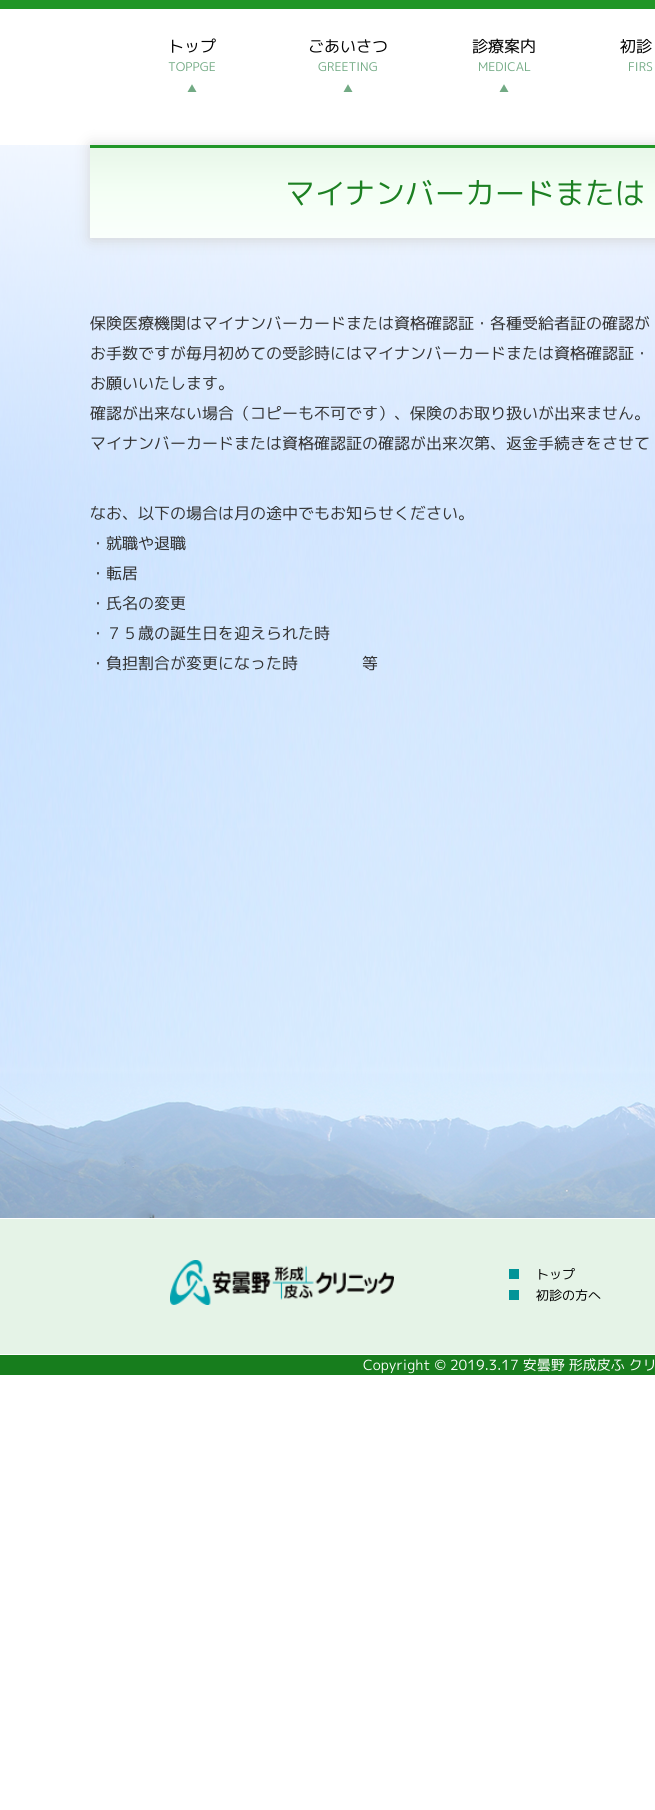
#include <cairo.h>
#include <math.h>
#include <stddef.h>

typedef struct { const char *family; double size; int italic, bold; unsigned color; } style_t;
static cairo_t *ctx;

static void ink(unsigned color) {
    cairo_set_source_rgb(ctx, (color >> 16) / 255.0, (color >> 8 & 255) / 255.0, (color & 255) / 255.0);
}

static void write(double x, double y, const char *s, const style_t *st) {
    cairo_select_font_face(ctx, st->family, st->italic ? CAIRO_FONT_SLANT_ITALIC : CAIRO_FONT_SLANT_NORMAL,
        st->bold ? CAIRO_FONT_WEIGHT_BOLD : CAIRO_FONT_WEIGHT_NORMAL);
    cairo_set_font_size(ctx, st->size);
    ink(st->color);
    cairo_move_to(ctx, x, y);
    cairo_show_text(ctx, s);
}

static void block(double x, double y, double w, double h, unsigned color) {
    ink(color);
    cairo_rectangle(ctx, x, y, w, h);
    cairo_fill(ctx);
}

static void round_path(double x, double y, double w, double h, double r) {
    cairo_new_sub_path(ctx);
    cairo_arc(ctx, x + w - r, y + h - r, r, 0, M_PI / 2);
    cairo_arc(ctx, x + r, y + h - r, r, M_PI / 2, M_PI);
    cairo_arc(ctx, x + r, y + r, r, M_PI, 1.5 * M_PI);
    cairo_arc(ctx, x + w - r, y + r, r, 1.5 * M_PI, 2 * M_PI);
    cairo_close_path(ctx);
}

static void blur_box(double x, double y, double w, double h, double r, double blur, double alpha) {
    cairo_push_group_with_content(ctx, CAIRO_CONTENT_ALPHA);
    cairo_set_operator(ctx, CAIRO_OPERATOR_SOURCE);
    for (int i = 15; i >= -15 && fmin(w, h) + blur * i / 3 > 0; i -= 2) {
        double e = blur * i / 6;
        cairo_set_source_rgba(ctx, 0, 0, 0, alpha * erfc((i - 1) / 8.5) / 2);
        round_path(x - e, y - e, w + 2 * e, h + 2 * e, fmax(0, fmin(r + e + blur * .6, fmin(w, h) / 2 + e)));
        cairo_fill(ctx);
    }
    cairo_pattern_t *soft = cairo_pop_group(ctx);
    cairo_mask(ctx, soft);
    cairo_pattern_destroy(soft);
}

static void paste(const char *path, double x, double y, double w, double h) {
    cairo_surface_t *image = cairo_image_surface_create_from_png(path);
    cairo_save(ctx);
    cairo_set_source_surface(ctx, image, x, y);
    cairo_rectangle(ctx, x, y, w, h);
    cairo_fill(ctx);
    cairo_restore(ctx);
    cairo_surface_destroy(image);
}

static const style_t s1 = {"M PLUS 1p", 16, 0, 0, 0x000000};
static const style_t s2 = {"M PLUS 1p", 12, 0, 0, 0x72aa84};
static const style_t s3 = {"M PLUS 1p", 10, 0, 0, 0x72aa84};
static const style_t s4 = {"M PLUS 1p", 30, 0, 0, 0x1c8022};
static const style_t s5 = {"M PLUS 1p", 16, 0, 0, 0x333333};
static const style_t s6 = {"M PLUS 1p", 13, 0, 0, 0x000000};
static const style_t s7 = {"M PLUS 1p", 14, 0, 0, 0xffffff};

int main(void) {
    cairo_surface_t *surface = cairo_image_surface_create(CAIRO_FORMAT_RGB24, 655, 1810);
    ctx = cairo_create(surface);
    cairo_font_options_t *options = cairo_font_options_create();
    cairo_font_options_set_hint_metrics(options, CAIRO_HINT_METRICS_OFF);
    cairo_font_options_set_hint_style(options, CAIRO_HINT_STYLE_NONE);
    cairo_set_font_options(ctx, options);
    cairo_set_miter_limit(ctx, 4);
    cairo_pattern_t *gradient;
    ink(0xffffff);
    cairo_paint(ctx);
    block(0, 0, 655, 9, 0x219627);
    write(168, 52, "トップ", &s1);
    write(168, 71, "TOPPGE", &s2);
    write(187, 92, "▲", &s3);
    write(308, 52, "ごあいさつ", &s1);
    write(318, 71, "GREETING", &s2);
    write(343, 92, "▲", &s3);
    write(472, 52, "診療案内", &s1);
    write(478, 71, "MEDICAL", &s2);
    write(499, 92, "▲", &s3);
    write(620, 52, "初診", &s1);
    write(628, 71, "FIRS", &s2);
    paste("pic1.png", 0, 145, 655, 1073);
    ink(0xd2d2d2);
    blur_box(91, 146, 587, 93, 0, 7.5, 1);
    gradient = cairo_pattern_create_linear(600, 148, 600, 238);
    cairo_pattern_add_color_stop_rgba(gradient, 0, 0.91, 0.969, 0.914, 1);
    cairo_pattern_add_color_stop_rgba(gradient, 0.5, 0.957, 1, 0.961, 1);
    cairo_pattern_add_color_stop_rgba(gradient, 1, 0.98, 1, 0.988, 1);
    cairo_set_source(ctx, gradient);
    cairo_pattern_destroy(gradient);
    cairo_rectangle(ctx, 90, 148, 565, 90);
    cairo_fill(ctx);
    block(90, 145, 565, 3, 0x219627);
    write(285, 204, "マイナンバーカードまたは", &s4);
    write(90, 329, "保険医療機関はマイナンバーカードまたは資格確認証・各種受給者証の確認が", &s5);
    write(90, 359, "お手数ですが毎月初めての受診時にはマイナンバーカードまたは資格確認証・", &s5);
    write(90, 389, "お願いいたします。", &s5);
    write(90, 419, "確認が出来ない場合（コピーも不可です）、保険のお取り扱いが出来ません。", &s5);
    write(90, 449, "マイナンバーカードまたは資格確認証の確認が出来次第、返金手続きをさせて", &s5);
    write(90, 519, "なお、以下の場合は月の途中でもお知らせください。", &s5);
    write(90, 549, "・就職や退職", &s5);
    write(90, 579, "・転居", &s5);
    write(90, 609, "・氏名の変更", &s5);
    write(90, 639, "・７５歳の誕生日を迎えられた時", &s5);
    write(90, 669, "・負担割合が変更になった時　　　　等", &s5);
    block(0, 1219, 655, 135, 0xe5f3e7);
    paste("pic2.png", 170, 1260, 224, 45);
    block(509, 1269, 10, 10, 0x029498);
    write(536, 1279, "トップ", &s6);
    block(509, 1290, 10, 10, 0x029498);
    write(536, 1300, "初診の方へ", &s6);
    block(0, 1355, 655, 20, 0x177d1d);
    write(363, 1370, "Copyright © 2019.3.17 安曇野 形成皮ふ クリ", &s7);
    cairo_surface_write_to_png(surface, "screenshot.png");
    cairo_font_options_destroy(options);
    cairo_destroy(ctx);
    cairo_surface_destroy(surface);
    return 0;
}
